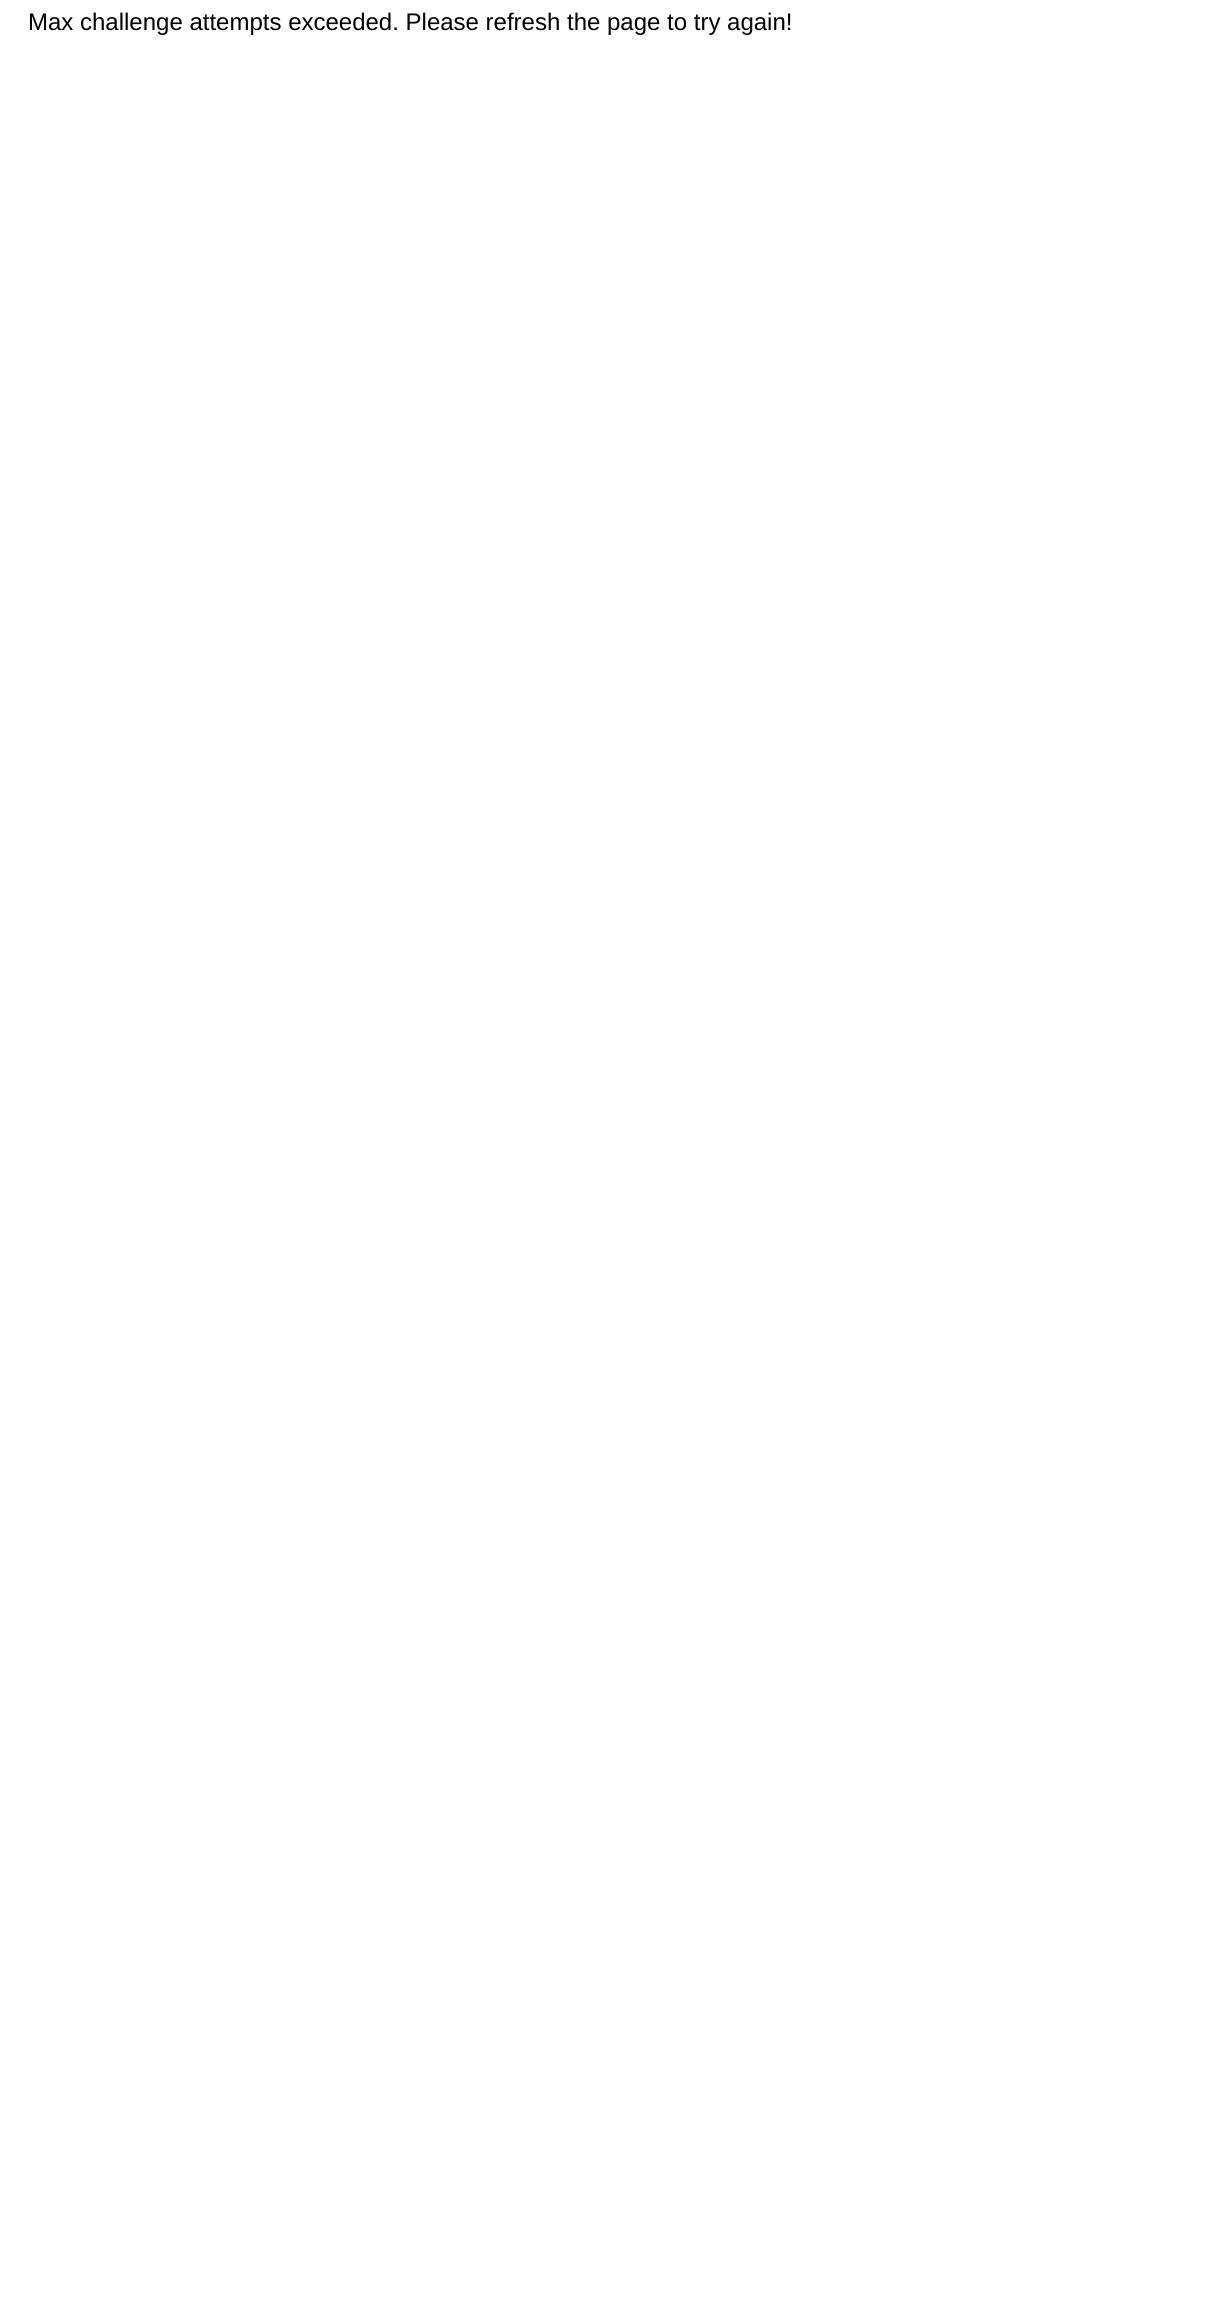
#include <cairo.h>
#include <math.h>
#include <stddef.h>

typedef struct { const char *family; double size; int italic, bold; unsigned color; } style_t;
static cairo_t *ctx;

static void ink(unsigned color) {
    cairo_set_source_rgb(ctx, (color >> 16) / 255.0, (color >> 8 & 255) / 255.0, (color & 255) / 255.0);
}

static void write(double x, double y, const char *s, const style_t *st) {
    cairo_select_font_face(ctx, st->family, st->italic ? CAIRO_FONT_SLANT_ITALIC : CAIRO_FONT_SLANT_NORMAL,
        st->bold ? CAIRO_FONT_WEIGHT_BOLD : CAIRO_FONT_WEIGHT_NORMAL);
    cairo_set_font_size(ctx, st->size);
    ink(st->color);
    cairo_move_to(ctx, x, y);
    cairo_show_text(ctx, s);
}

static const style_t s1 = {"Liberation Sans", 24, 0, 0, 0x000000};

int main(void) {
    cairo_surface_t *surface = cairo_image_surface_create(CAIRO_FORMAT_RGB24, 1207, 2313);
    ctx = cairo_create(surface);
    cairo_font_options_t *options = cairo_font_options_create();
    cairo_font_options_set_hint_metrics(options, CAIRO_HINT_METRICS_OFF);
    cairo_font_options_set_hint_style(options, CAIRO_HINT_STYLE_NONE);
    cairo_set_font_options(ctx, options);
    cairo_set_miter_limit(ctx, 4);
    ink(0xffffff);
    cairo_paint(ctx);
    write(28, 30, "Max challenge attempts exceeded. Please refresh the page to try again!", &s1);
    cairo_surface_write_to_png(surface, "screenshot.png");
    cairo_font_options_destroy(options);
    cairo_destroy(ctx);
    cairo_surface_destroy(surface);
    return 0;
}
